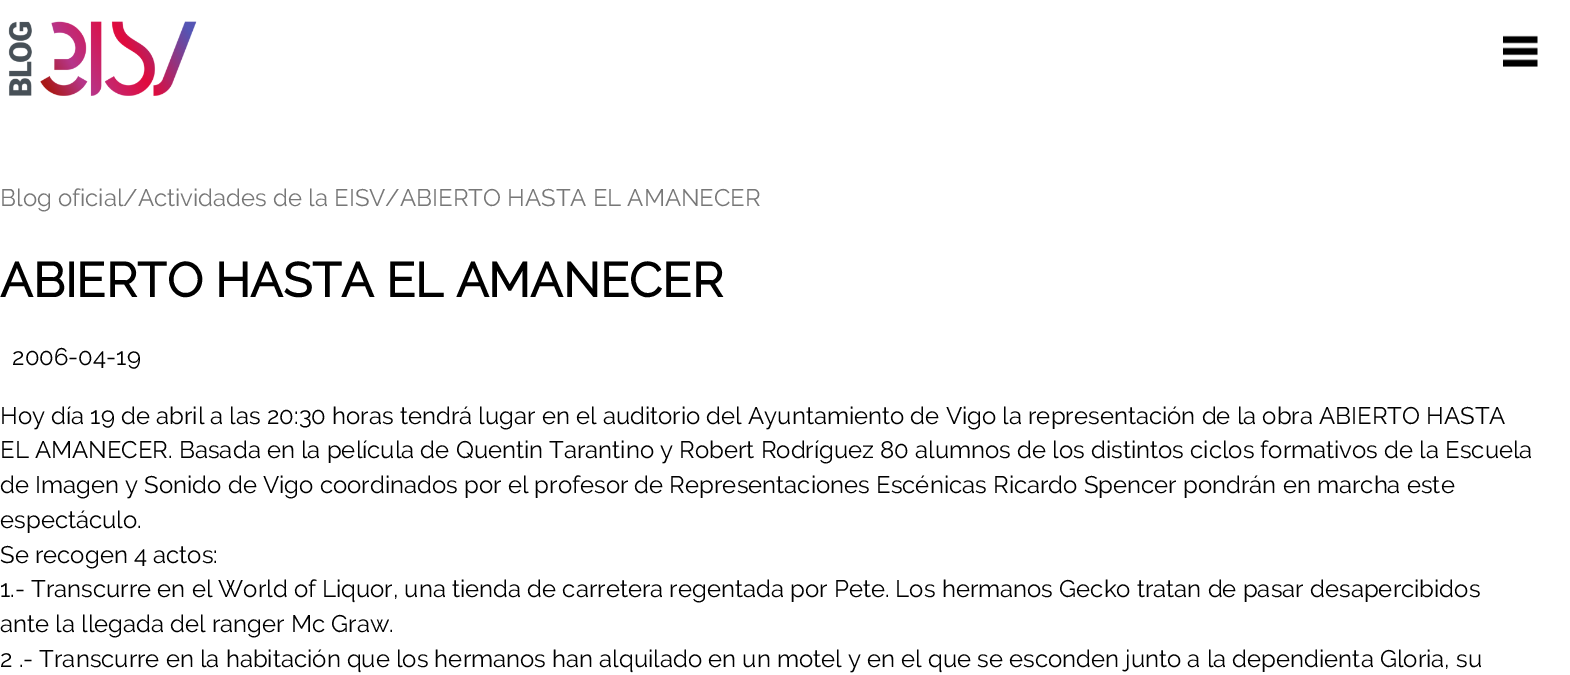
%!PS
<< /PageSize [1570 675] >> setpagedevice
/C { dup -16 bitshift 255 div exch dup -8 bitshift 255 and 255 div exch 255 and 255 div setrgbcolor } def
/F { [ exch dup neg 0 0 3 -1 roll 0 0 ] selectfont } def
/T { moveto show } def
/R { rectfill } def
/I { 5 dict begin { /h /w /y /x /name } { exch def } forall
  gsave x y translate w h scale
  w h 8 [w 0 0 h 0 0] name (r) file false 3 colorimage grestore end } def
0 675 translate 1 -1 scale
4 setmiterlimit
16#FFFFFF C
0 0 1570 675 R
(1.rgb) 8 21 189 75 I
(2.rgb) 1503 35 35 32 I
/Raleway-Regular 24 F
16#777777 C
(Blog oficial/Actividades de la EISV/ABIERTO HASTA EL AMANECER) 0 206 T
/Raleway-Bold 48.1 F
16#000000 C
(ABIERTO HASTA EL AMANECER) 0 297 T
/Raleway-Regular 24 F
(2006-04-19) 12 365 T
(Hoy día 19 de abril a las 20:30 horas tendrá lugar en el auditorio del Ayuntamiento de Vigo la representación de la obra ABIERTO HASTA) 0 424 T
(EL AMANECER. Basada en la película de Quentin Tarantino y Robert Rodríguez 80 alumnos de los distintos ciclos formativos de la Escuela) 0 458 T
(de Imagen y Sonido de Vigo coordinados por el profesor de Representaciones Escénicas Ricardo Spencer pondrán en marcha este) 0 493 T
(espectáculo.) 0 528 T
(Se recogen 4 actos:) 0 563 T
(1.- Transcurre en el World of Liquor, una tienda de carretera regentada por Pete. Los hermanos Gecko tratan de pasar desapercibidos) 0 597 T
(ante la llegada del ranger Mc Graw.) 0 632 T
(2 .- Transcurre en la habitación que los hermanos han alquilado en un motel y en el que se esconden junto a la dependienta Gloria, su) 0 667 T
showpage
